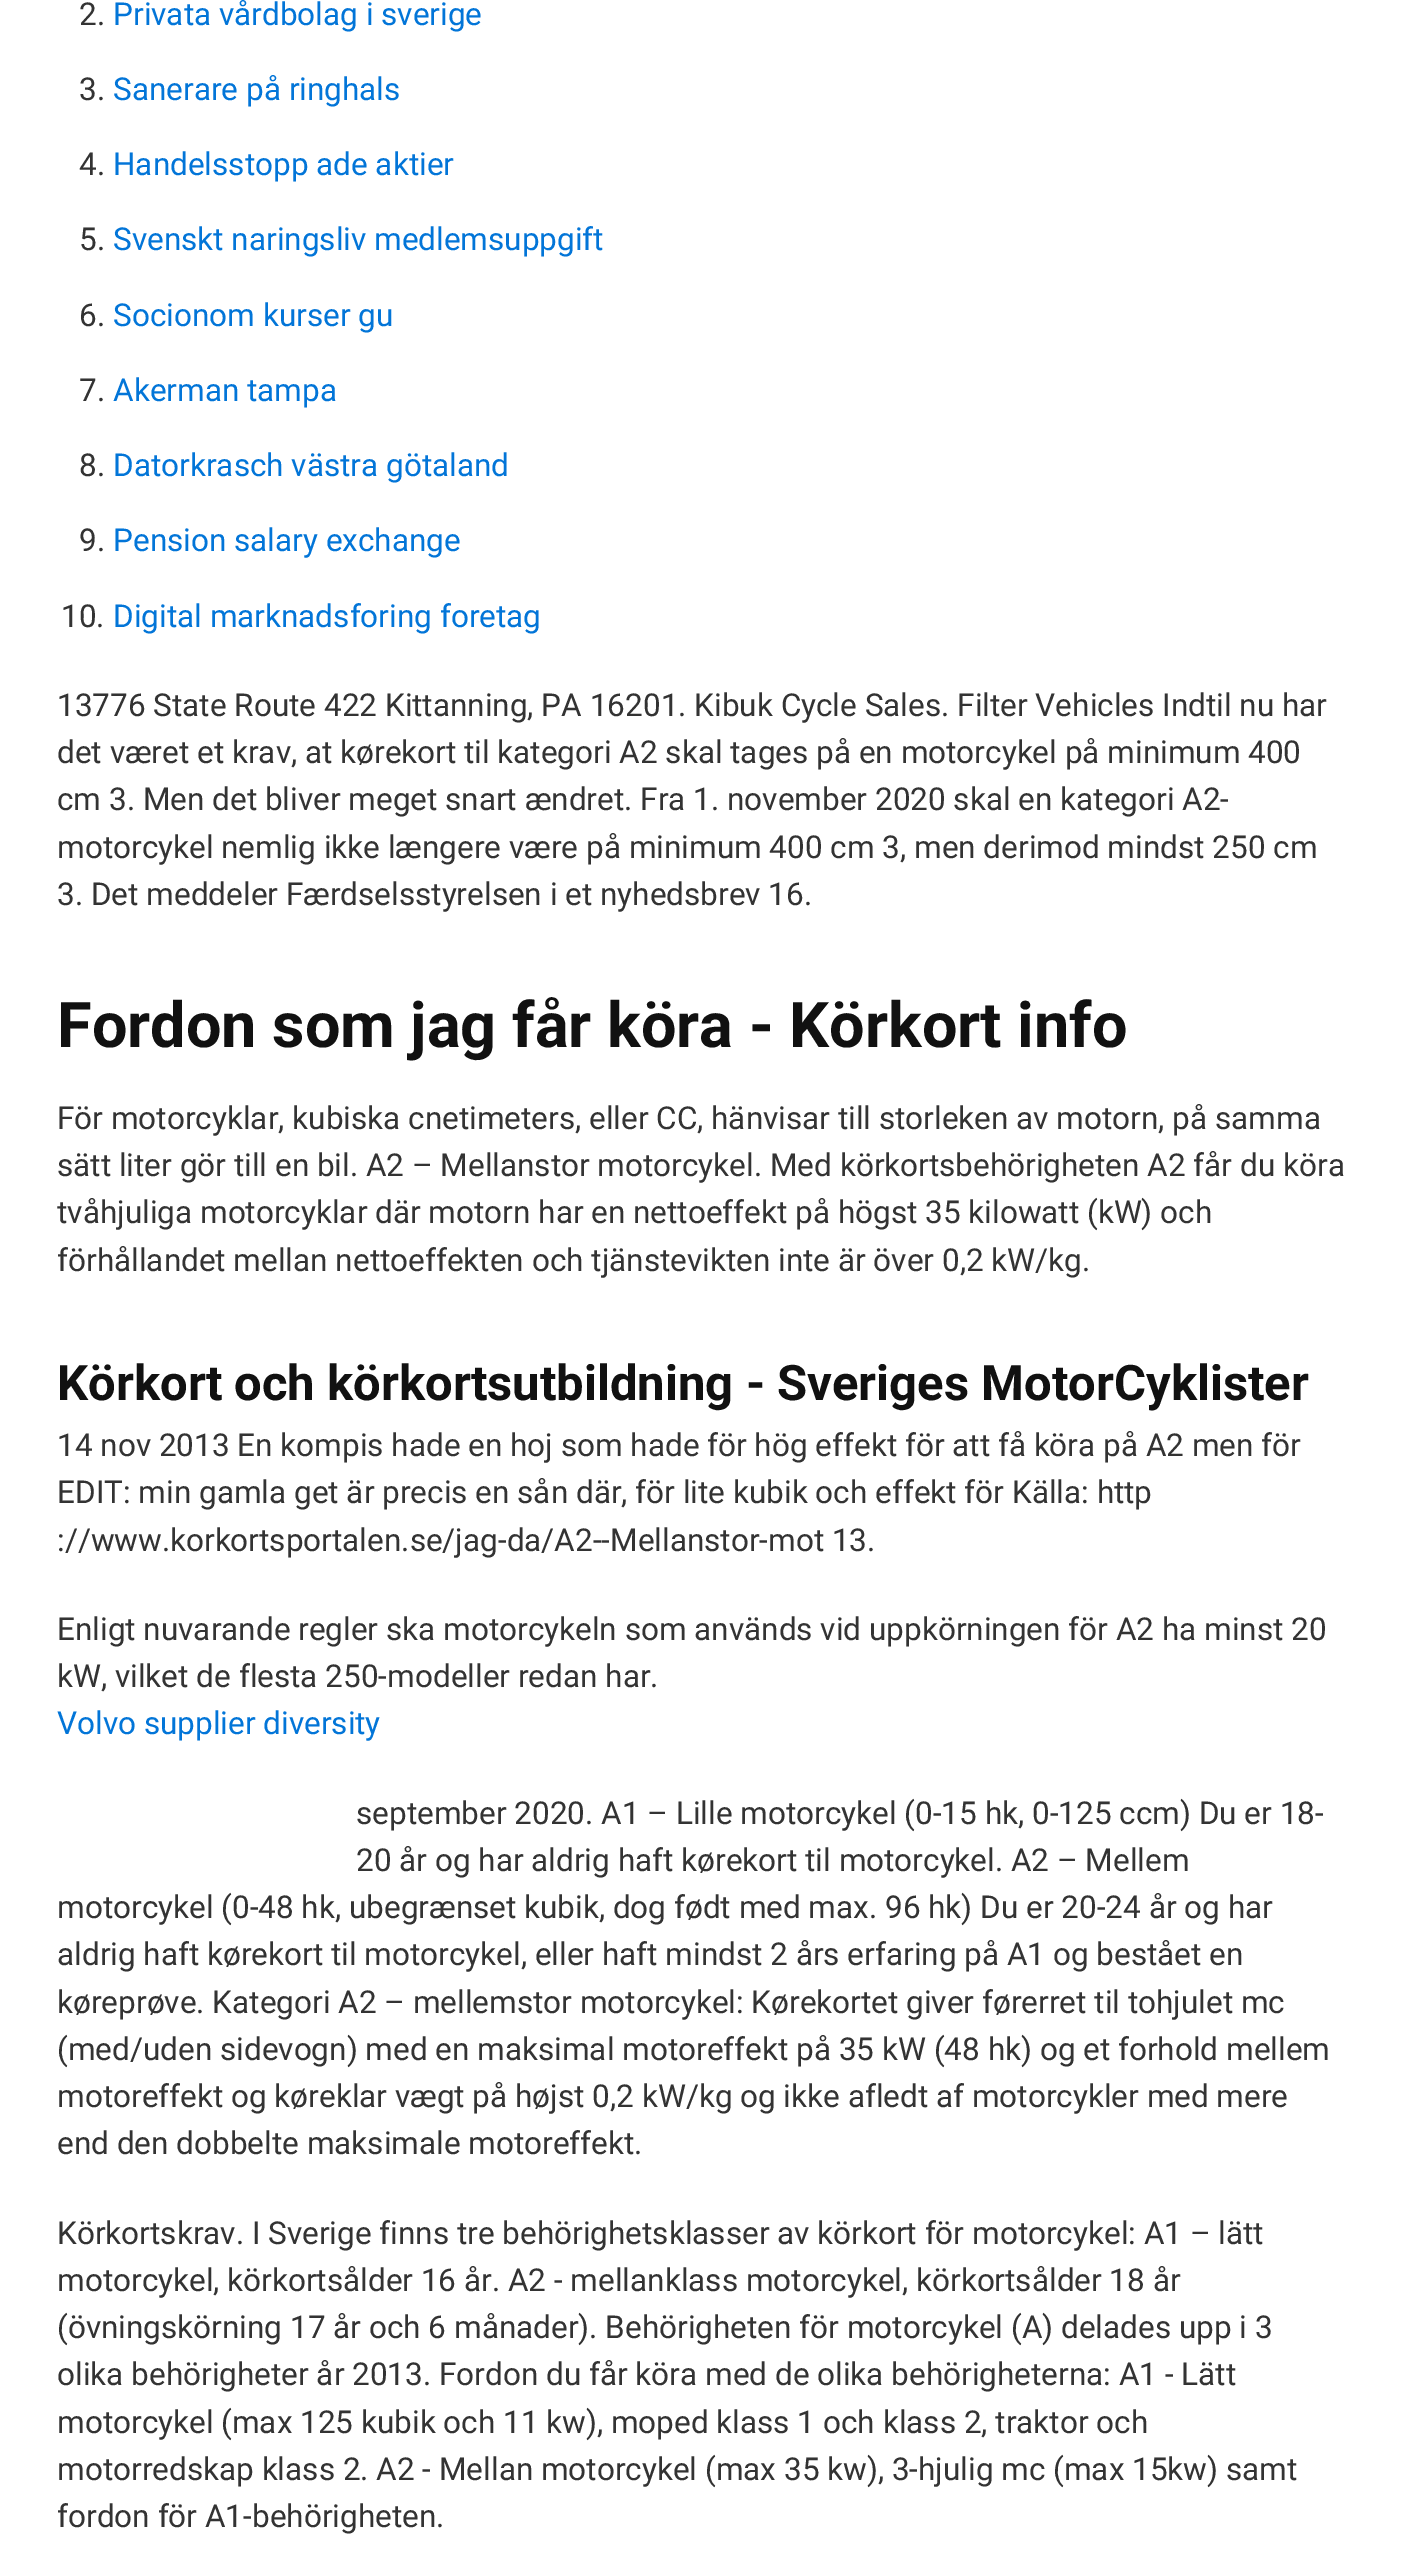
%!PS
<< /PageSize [1401 2558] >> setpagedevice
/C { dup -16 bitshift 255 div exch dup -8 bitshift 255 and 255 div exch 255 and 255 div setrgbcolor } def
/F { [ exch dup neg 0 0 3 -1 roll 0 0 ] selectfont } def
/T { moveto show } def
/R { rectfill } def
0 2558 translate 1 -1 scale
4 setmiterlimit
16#FFFFFF C
0 0 1401 2558 R
/Roboto-Regular 31.5 F
16#333333 C
(2.) 79 25 T
16#0275D8 C
(Privata vårdbolag i sverige) 113 25 T
16#333333 C
(3.) 79 100 T
16#0275D8 C
(Sanerare på ringhals) 113 100 T
16#333333 C
(4.) 79 175 T
16#0275D8 C
(Handelsstopp ade aktier) 113 175 T
16#333333 C
(5.) 79 250 T
16#0275D8 C
(Svenskt naringsliv medlemsuppgift) 113 250 T
16#333333 C
(6.) 79 326 T
16#0275D8 C
(Socionom kurser gu) 113 326 T
16#333333 C
(7.) 79 401 T
16#0275D8 C
(Akerman tampa) 113 401 T
16#333333 C
(8.) 79 476 T
16#0275D8 C
(Datorkrasch västra götaland) 113 476 T
16#333333 C
(9.) 79 551 T
16#0275D8 C
(Pension salary exchange) 113 551 T
16#333333 C
(10.) 61 627 T
16#0275D8 C
(Digital marknadsforing foretag) 113 627 T
16#333333 C
(13776 State Route 422 Kittanning, PA 16201. Kibuk Cycle Sales. Filter Vehicles Indtil nu har) 57 716 T
(det været et krav, at kørekort til kategori A2 skal tages på en motorcykel på minimum 400) 57 763 T
(cm 3. Men det bliver meget snart ændret. Fra 1. november 2020 skal en kategori A2-) 57 810 T
(motorcykel nemlig ikke længere være på minimum 400 cm 3, men derimod mindst 250 cm) 57 858 T
(3. Det meddeler Færdselsstyrelsen i et nyhedsbrev 16.) 57 905 T
/Roboto-Bold 63 F
16#111111 C
(Fordon som jag får köra - Körkort info) 57 1047 T
/Roboto-Regular 31.5 F
16#333333 C
(För motorcyklar, kubiska cnetimeters, eller CC, hänvisar till storleken av motorn, på samma) 57 1129 T
(sätt liter gör till en bil. A2 – Mellanstor motorcykel. Med körkortsbehörigheten A2 får du köra) 57 1176 T
(tvåhjuliga motorcyklar där motorn har en nettoeffekt på högst 35 kilowatt \(kW\) och) 57 1223 T
(förhållandet mellan nettoeffekten och tjänstevikten inte är över 0,2 kW/kg.) 57 1271 T
/Roboto-Bold 49 F
16#111111 C
(Körkort och körkortsutbildning - Sveriges MotorCyklister) 57 1400 T
/Roboto-Regular 31.5 F
16#333333 C
(14 nov 2013 En kompis hade en hoj som hade för hög effekt för att få köra på A2 men för) 57 1456 T
(EDIT: min gamla get är precis en sån där, för lite kubik och effekt för Källa: http) 57 1503 T
(://www.korkortsportalen.se/jag-da/A2--Mellanstor-mot 13.) 57 1551 T
(Enligt nuvarande regler ska motorcykeln som används vid uppkörningen för A2 ha minst 20) 57 1640 T
(kW, vilket de flesta 250-modeller redan har.) 57 1687 T
16#0275D8 C
(Volvo supplier diversity) 57 1734 T
16#333333 C
(september 2020. A1 – Lille motorcykel \(0-15 hk, 0-125 ccm\) Du er 18-) 356 1824 T
(20 år og har aldrig haft kørekort til motorcykel. A2 – Mellem) 356 1871 T
(motorcykel \(0-48 hk, ubegrænset kubik, dog født med max. 96 hk\) Du er 20-24 år og har) 57 1918 T
(aldrig haft kørekort til motorcykel, eller haft mindst 2 års erfaring på A1 og bestået en) 57 1965 T
(køreprøve. Kategori A2 – mellemstor motorcykel: Kørekortet giver førerret til tohjulet mc) 57 2013 T
(\(med/uden sidevogn\) med en maksimal motoreffekt på 35 kW \(48 hk\) og et forhold mellem) 57 2060 T
(motoreffekt og køreklar vægt på højst 0,2 kW/kg og ikke afledt af motorcykler med mere) 57 2107 T
(end den dobbelte maksimale motoreffekt.) 57 2154 T
(Körkortskrav. I Sverige finns tre behörighetsklasser av körkort för motorcykel: A1 – lätt) 57 2244 T
(motorcykel, körkortsålder 16 år. A2 - mellanklass motorcykel, körkortsålder 18 år) 57 2291 T
(\(övningskörning 17 år och 6 månader\). Behörigheten för motorcykel \(A\) delades upp i 3) 57 2338 T
(olika behörigheter år 2013. Fordon du får köra med de olika behörigheterna: A1 - Lätt) 57 2385 T
(motorcykel \(max 125 kubik och 11 kw\), moped klass 1 och klass 2, traktor och) 57 2433 T
(motorredskap klass 2. A2 - Mellan motorcykel \(max 35 kw\), 3-hjulig mc \(max 15kw\) samt) 57 2480 T
(fordon för A1-behörigheten.) 57 2527 T
showpage
